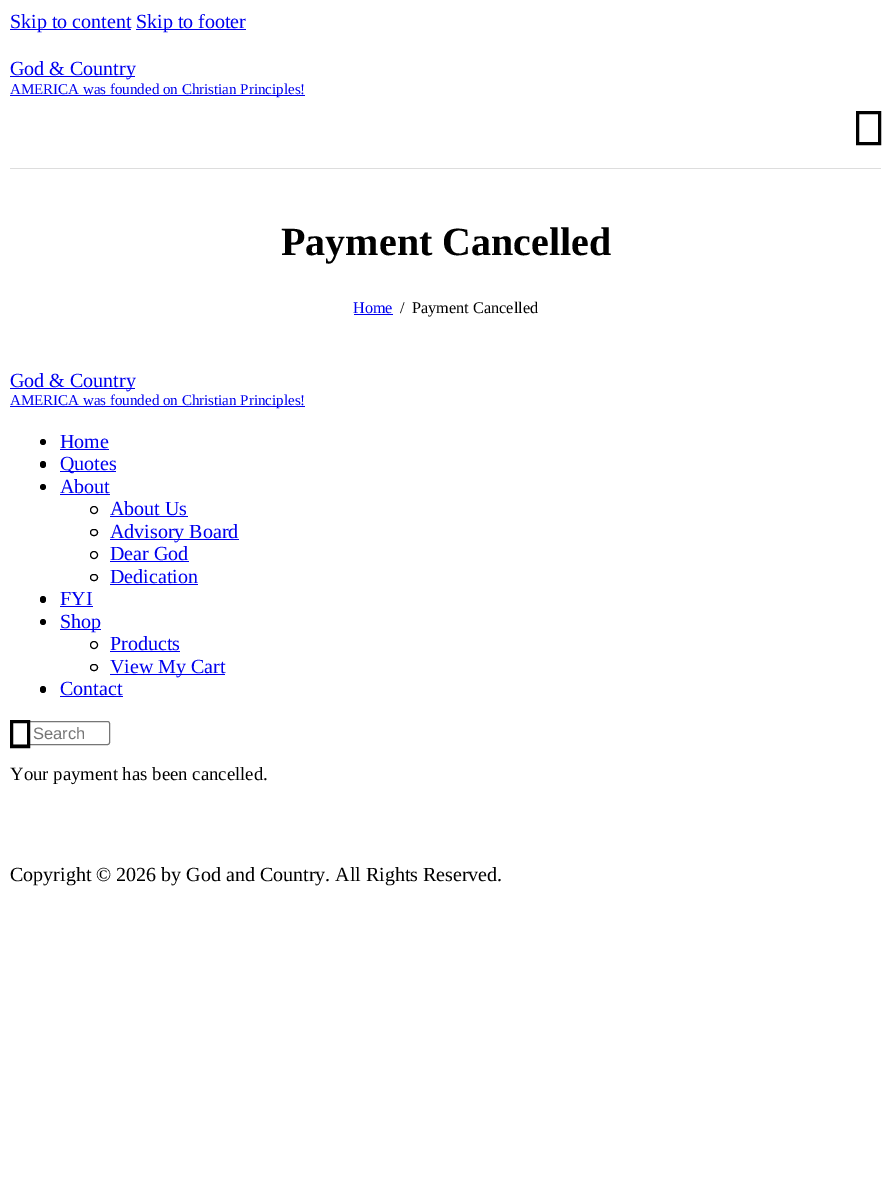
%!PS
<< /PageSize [891 1185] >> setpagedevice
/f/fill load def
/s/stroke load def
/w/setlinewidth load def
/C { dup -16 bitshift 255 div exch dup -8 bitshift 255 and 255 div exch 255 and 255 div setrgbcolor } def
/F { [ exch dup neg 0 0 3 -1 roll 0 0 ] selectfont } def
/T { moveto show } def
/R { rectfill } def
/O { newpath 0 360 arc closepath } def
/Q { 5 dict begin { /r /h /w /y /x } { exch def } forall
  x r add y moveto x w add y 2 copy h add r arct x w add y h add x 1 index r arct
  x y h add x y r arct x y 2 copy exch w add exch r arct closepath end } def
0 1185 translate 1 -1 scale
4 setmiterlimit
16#FFFFFF C
0 0 891 1185 R
16#0000EE C
10 29 121 1 R
/LiberationSerif-Regular 20 F
(Skip to content) 10 28 T
136 29 110 1 R
(Skip to footer) 136 28 T
16#DDDDDD C
10 168 871 1 R
16#0000EE C
10 76 125 1 R
(God & Country) 10 75 T
10 95 295 1 R
/LiberationSerif-Regular 15 F
(AMERICA was founded on Christian Principles!) 10 94 T
16#000000 C
3 w
857.5 112.5 22 31 rectstroke
/LiberationSerif-Bold 40 F
(Payment Cancelled) 281 255 T
/LiberationSerif-Regular 16.25 F
16#0000EE C
(Home) 353 313 T
354 314 39 1 R
16#000000 C
(/) 400 313 T
(Payment Cancelled) 412 313 T
16#0000EE C
10 388 125 1 R
/LiberationSerif-Regular 20 F
(God & Country) 10 387 T
10 406 295 1 R
/LiberationSerif-Regular 15 F
(AMERICA was founded on Christian Principles!) 10 405 T
16#000000 C
43 442 3 O f
/LiberationSerif-Regular 20 F
16#0000EE C
(Home) 60 448 T
60 449 49 1 R
16#000000 C
40 461 6 7 3 Q f
16#0000EE C
60 471 56 1 R
(Quotes) 60 470 T
16#000000 C
43 487 3 O f
16#0000EE C
(About) 60 493 T
60 494 50 1 R
16#000000 C
1 w
94 510 3.5 O s
16#0000EE C
(About Us) 110 515 T
110 516 78 1 R
16#000000 C
90.5 529.5 7 6 3 Q s
16#0000EE C
110 539 129 1 R
(Advisory Board) 110 538 T
16#000000 C
94 555 3.5 O s
16#0000EE C
(Dear God) 110 560 T
110 561 79 1 R
16#000000 C
90.5 574.5 7 6 3 Q s
16#0000EE C
(Dedication) 110 583 T
110 584 88 1 R
16#000000 C
40 596 6 7 3 Q f
16#0000EE C
(FYI) 60 605 T
60 606 33 1 R
16#000000 C
43 622 3 O f
16#0000EE C
60 629 41 1 R
(Shop) 60 628 T
16#000000 C
94 645 3.5 O s
16#0000EE C
(Products) 110 650 T
110 651 70 1 R
16#000000 C
90.5 664.5 7 6 3 Q s
16#0000EE C
110 674 115 1 R
(View My Cart) 110 673 T
16#000000 C
40 686 6 7 3 Q f
16#0000EE C
(Contact) 60 695 T
60 696 63 1 R
16#767676 C
10.5 721.5 99 23 2 Q s
16#000000 C
3 w
11.5 721.5 17 25 rectstroke
/LiberationSans-Regular 16.5 F
16#757575 C
(Search) 33 739 T
/LiberationSerif-Regular 18.75 F
16#000000 C
(Your payment has been cancelled.) 10 780 T
/LiberationSerif-Regular 20 F
(Copyright © 2026 by God and Country. All Rights Reserved.) 10 881 T
showpage
